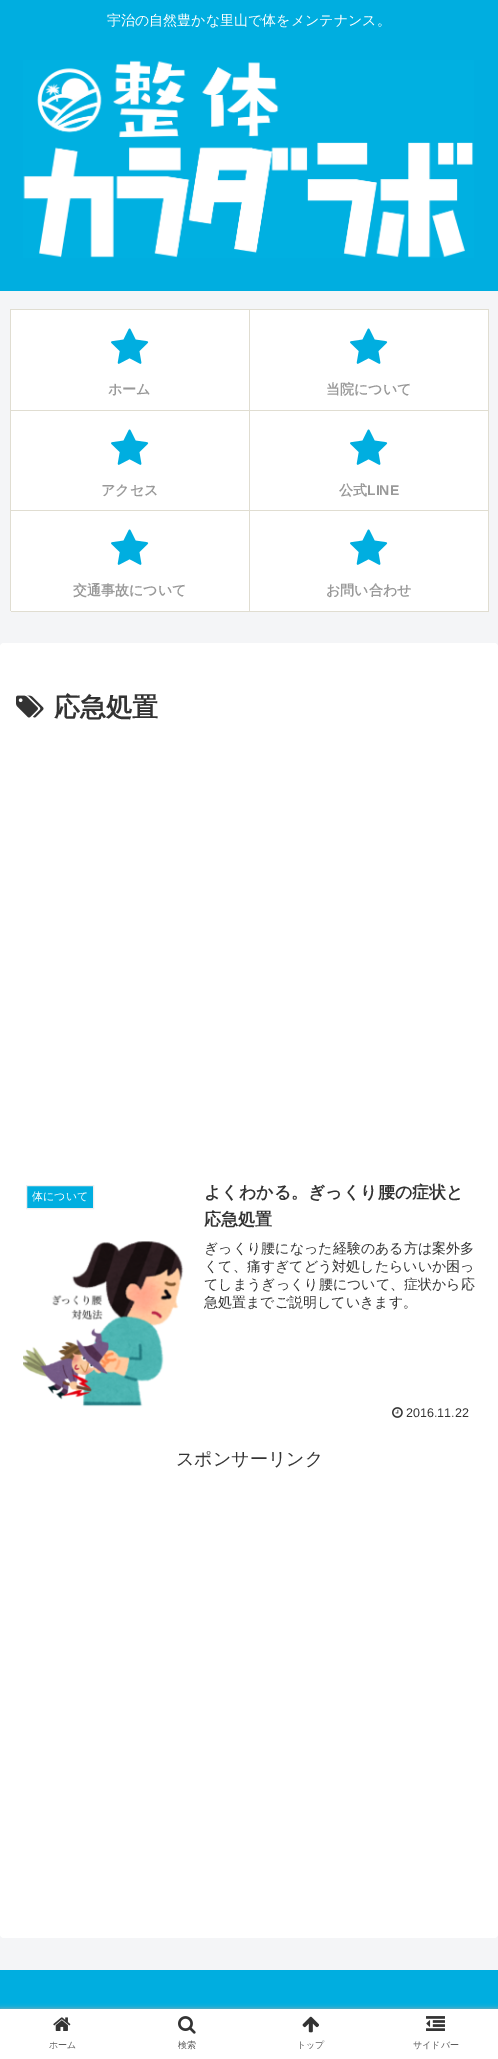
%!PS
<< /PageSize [498 2059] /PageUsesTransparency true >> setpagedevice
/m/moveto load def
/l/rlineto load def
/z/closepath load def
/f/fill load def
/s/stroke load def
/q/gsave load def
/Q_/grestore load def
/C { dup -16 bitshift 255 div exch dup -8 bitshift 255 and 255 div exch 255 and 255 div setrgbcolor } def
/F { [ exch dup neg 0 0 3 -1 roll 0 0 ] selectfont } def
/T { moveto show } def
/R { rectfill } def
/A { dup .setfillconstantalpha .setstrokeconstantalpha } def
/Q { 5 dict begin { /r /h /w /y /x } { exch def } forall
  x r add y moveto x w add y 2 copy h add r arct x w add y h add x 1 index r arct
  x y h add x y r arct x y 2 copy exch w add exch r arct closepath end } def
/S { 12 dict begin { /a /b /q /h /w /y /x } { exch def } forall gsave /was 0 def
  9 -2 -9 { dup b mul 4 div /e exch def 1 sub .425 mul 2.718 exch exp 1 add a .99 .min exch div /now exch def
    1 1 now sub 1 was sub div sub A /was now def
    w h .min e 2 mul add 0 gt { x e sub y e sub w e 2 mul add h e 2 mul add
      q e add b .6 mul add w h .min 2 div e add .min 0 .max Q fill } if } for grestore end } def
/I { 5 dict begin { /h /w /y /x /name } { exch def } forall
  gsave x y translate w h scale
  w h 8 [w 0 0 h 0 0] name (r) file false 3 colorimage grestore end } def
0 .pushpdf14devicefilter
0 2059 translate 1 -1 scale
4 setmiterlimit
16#F4F5F7 C
0 0 498 2059 R
16#00AEE0 C
0 0 498 291 R
/WenQuanYiZenHei-Medium 14 F
16#FFFFFF C
(宇治の自然豊かな里山で体をメンテナンス。) 107 25 T
(1.rgb) 23 60 451 198 I
11 310 238 100 R
q
10 309 239 101 rectclip
16#E0DDD1 C
-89 210 m 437 0 l 0 299 l -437 0 l z 11 310 m 239 0 l 0 101 l -239 0 l z eofill
Q_
(2.rgb) 111 328 38 36 I
/WenQuanYiZenHei-Bold 14 F
16#999999 C
(ホーム) 108 394 T
16#E0DDD1 C
488 309 1 1 R
250 410 m 0 1 l 239 0 l 0 -101 l -1 0 l 0 100 l z f
16#FFFFFF C
250 310 238 100 R
q
249 309 239 101 rectclip
16#E0DDD1 C
150 210 m 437 0 l 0 299 l -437 0 l z 250 310 m 239 0 l 0 101 l -239 0 l z eofill
Q_
(2.rgb) 350 328 38 36 I
16#999999 C
(当院について) 326 394 T
16#FFFFFF C
11 411 238 99 R
q
10 410 239 100 rectclip
16#E0DDD1 C
-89 311 m 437 0 l 0 298 l -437 0 l z 11 411 m 239 0 l 0 100 l -239 0 l z eofill
Q_
(2.rgb) 111 429 38 36 I
16#999999 C
(アクセス) 101 495 T
16#E0DDD1 C
250 510 m 0 1 l 239 0 l 0 -100 l -1 0 l 0 99 l z f
16#FFFFFF C
250 411 238 99 R
q
249 410 239 100 rectclip
16#E0DDD1 C
150 311 m 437 0 l 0 298 l -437 0 l z 250 411 m 239 0 l 0 100 l -239 0 l z eofill
Q_
(2.rgb) 350 429 38 36 I
16#999999 C
(公式) 339 495 T
/LiberationSans-Bold 14 F
(LINE) 367 495 T
16#E0DDD1 C
11 611 m 0 1 l 239 0 l 0 -101 l -1 0 l 0 100 l z f
16#FFFFFF C
11 511 238 100 R
q
10 510 239 101 rectclip
16#E0DDD1 C
-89 411 m 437 0 l 0 299 l -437 0 l z 11 511 m 239 0 l 0 101 l -239 0 l z eofill
Q_
(2.rgb) 111 529 38 36 I
/WenQuanYiZenHei-Bold 14 F
16#999999 C
(交通事故について) 73 595 T
16#E0DDD1 C
250 611 m 0 1 l 239 0 l 0 -101 l -1 0 l 0 100 l z f
16#FFFFFF C
250 511 238 100 R
q
249 510 239 101 rectclip
16#E0DDD1 C
150 411 m 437 0 l 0 299 l -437 0 l z 250 511 m 239 0 l 0 101 l -239 0 l z eofill
Q_
(2.rgb) 350 529 38 36 I
16#999999 C
(お問い合わせ) 326 595 T
16#FFFFFF C
0 643 498 1295 4 Q f
(3.rgb) 16 695 28 23 I
/WenQuanYiZenHei-Bold 26 F
16#333333 C
(応急処置) 54 716 T
16#00AEE0 C
26.5 1185.5 m 67 0 l 0 23 l -67 0 l z q f Q_
16#EEEEEE C
s
/WenQuanYiZenHei-Medium 11 F
16#FFFFFF C
(体について) 32 1200 T
(4.rgb) 23 1241 161 166 I
/WenQuanYiZenHei-Bold 17 F
16#333333 C
(よくわかる。ぎっくり腰の症状と) 204 1198 T
(応急処置) 204 1225 T
/WenQuanYiZenHei-Medium 14 F
(ぎっくり腰になった経験のある方は案外多) 204 1253 T
(くて、痛すぎてどう対処したらいいか困っ) 204 1271 T
(てしまうぎっくり腰について、症状から応) 204 1289 T
(急処置までご説明していきます。) 204 1307 T
(5.rgb) 392 1407 11 11 I
/LiberationSans-Regular 12.5 F
(2016.11.22) 406 1417 T
/WenQuanYiZenHei-Medium 18 F
(スポンサーリンク) 176 1465 T
16#00AEE0 C
0 1970 498 39 R
16#A9A9A9 C
0 2009 498 50 0 2.5 1 S
16#FFFFFF C
0 2009 498 50 R
(6.rgb) 53 2017 18 14 I
/WenQuanYiZenHei-Medium 9 F
16#5C5C5C C
(ホーム) 49 2048 T
(7.rgb) 178 2016 18 18 I
(検索) 178 2048 T
(8.rgb) 302 2016 17 17 I
(トップ) 297 2048 T
(9.rgb) 426 2016 19 15 I
(サイドバー) 413 2048 T
.poppdf14devicefilter showpage
